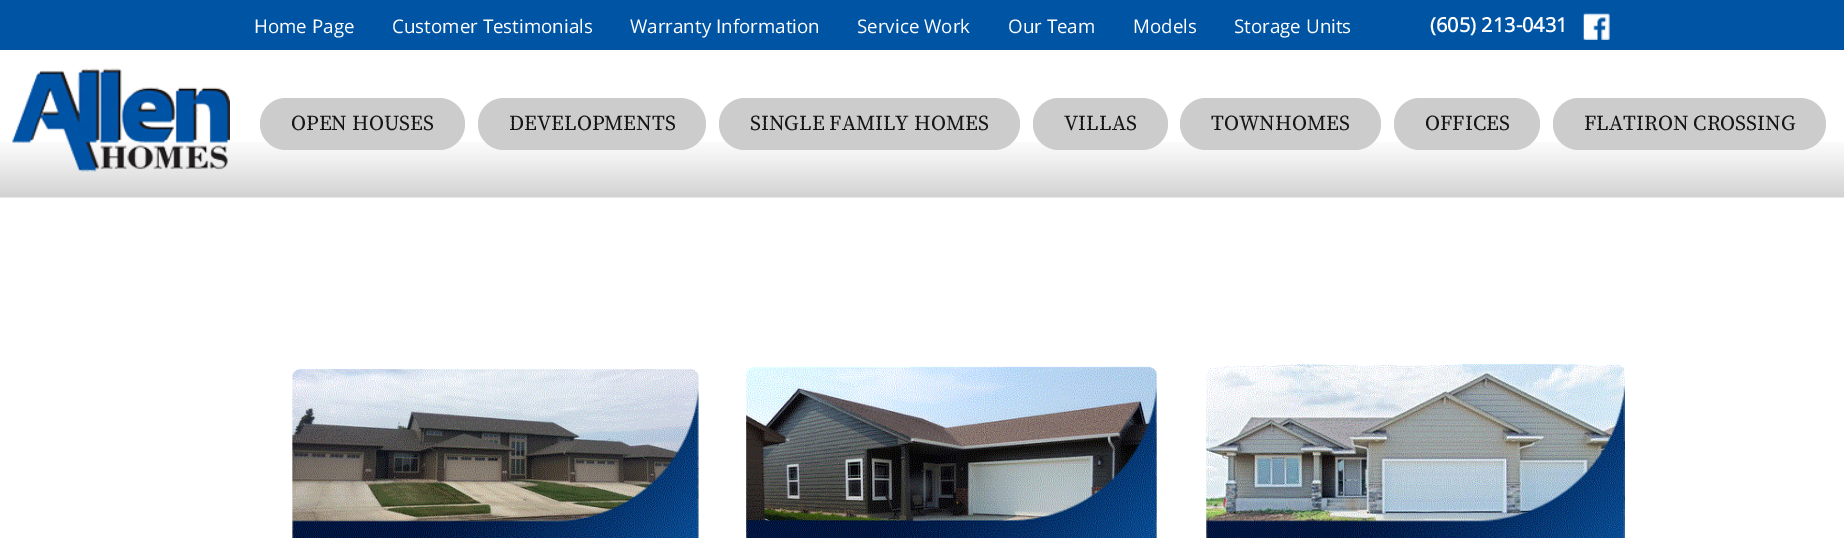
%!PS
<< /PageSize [1844 538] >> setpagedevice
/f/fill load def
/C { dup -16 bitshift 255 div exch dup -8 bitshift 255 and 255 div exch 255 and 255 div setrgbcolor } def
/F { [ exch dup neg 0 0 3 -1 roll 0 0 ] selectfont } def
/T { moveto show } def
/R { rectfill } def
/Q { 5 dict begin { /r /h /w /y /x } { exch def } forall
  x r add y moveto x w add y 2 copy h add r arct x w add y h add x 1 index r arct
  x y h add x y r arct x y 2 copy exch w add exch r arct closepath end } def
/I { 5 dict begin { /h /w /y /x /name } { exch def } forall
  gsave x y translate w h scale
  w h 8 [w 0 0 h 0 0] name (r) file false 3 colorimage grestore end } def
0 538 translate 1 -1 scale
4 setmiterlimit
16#FFFFFF C
0 0 1844 538 R
16#0054A4 C
0 0 1844 50 R
/OpenSans-Regular 18.75 F
16#FFFFFF C
(Home Page) 254 33 T
(Customer Testimonials) 392 33 T
(Warranty Information) 630 33 T
(Service Work) 857 33 T
(Our Team) 1008 33 T
(Models) 1133 33 T
(Storage Units) 1234 33 T
/OpenSans-Bold 20 F
(\(605\) 213-0431) 1430 32 T
(1.rgb) 1583 13 27 27 I
(2.rgb) 0 142 1844 56 I
(3.rgb) 12 68 218 104 I
16#CCCCCC C
260 98 205 52 26 Q f
/SourceSerifPro-Regular 21.25 F
16#151515 C
(OPEN HOUSES) 291 130 T
16#CCCCCC C
478 98 228 52 26 Q f
16#151515 C
(DEVELOPMENTS) 509 130 T
16#CCCCCC C
719 98 301 52 26 Q f
16#151515 C
(SINGLE FAMILY HOMES) 750 130 T
16#CCCCCC C
1033 98 135 52 26 Q f
16#151515 C
(VILLAS) 1064 130 T
16#CCCCCC C
1180 98 201 52 26 Q f
16#151515 C
(TOWNHOMES) 1211 130 T
16#CCCCCC C
1394 98 146 52 26 Q f
16#151515 C
(OFFICES) 1425 130 T
16#CCCCCC C
1553 98 273 52 26 Q f
16#151515 C
(FLATIRON CROSSING) 1584 130 T
(4.rgb) 292 369 407 169 I
(5.rgb) 746 366 411 172 I
(6.rgb) 1206 364 419 174 I
showpage
